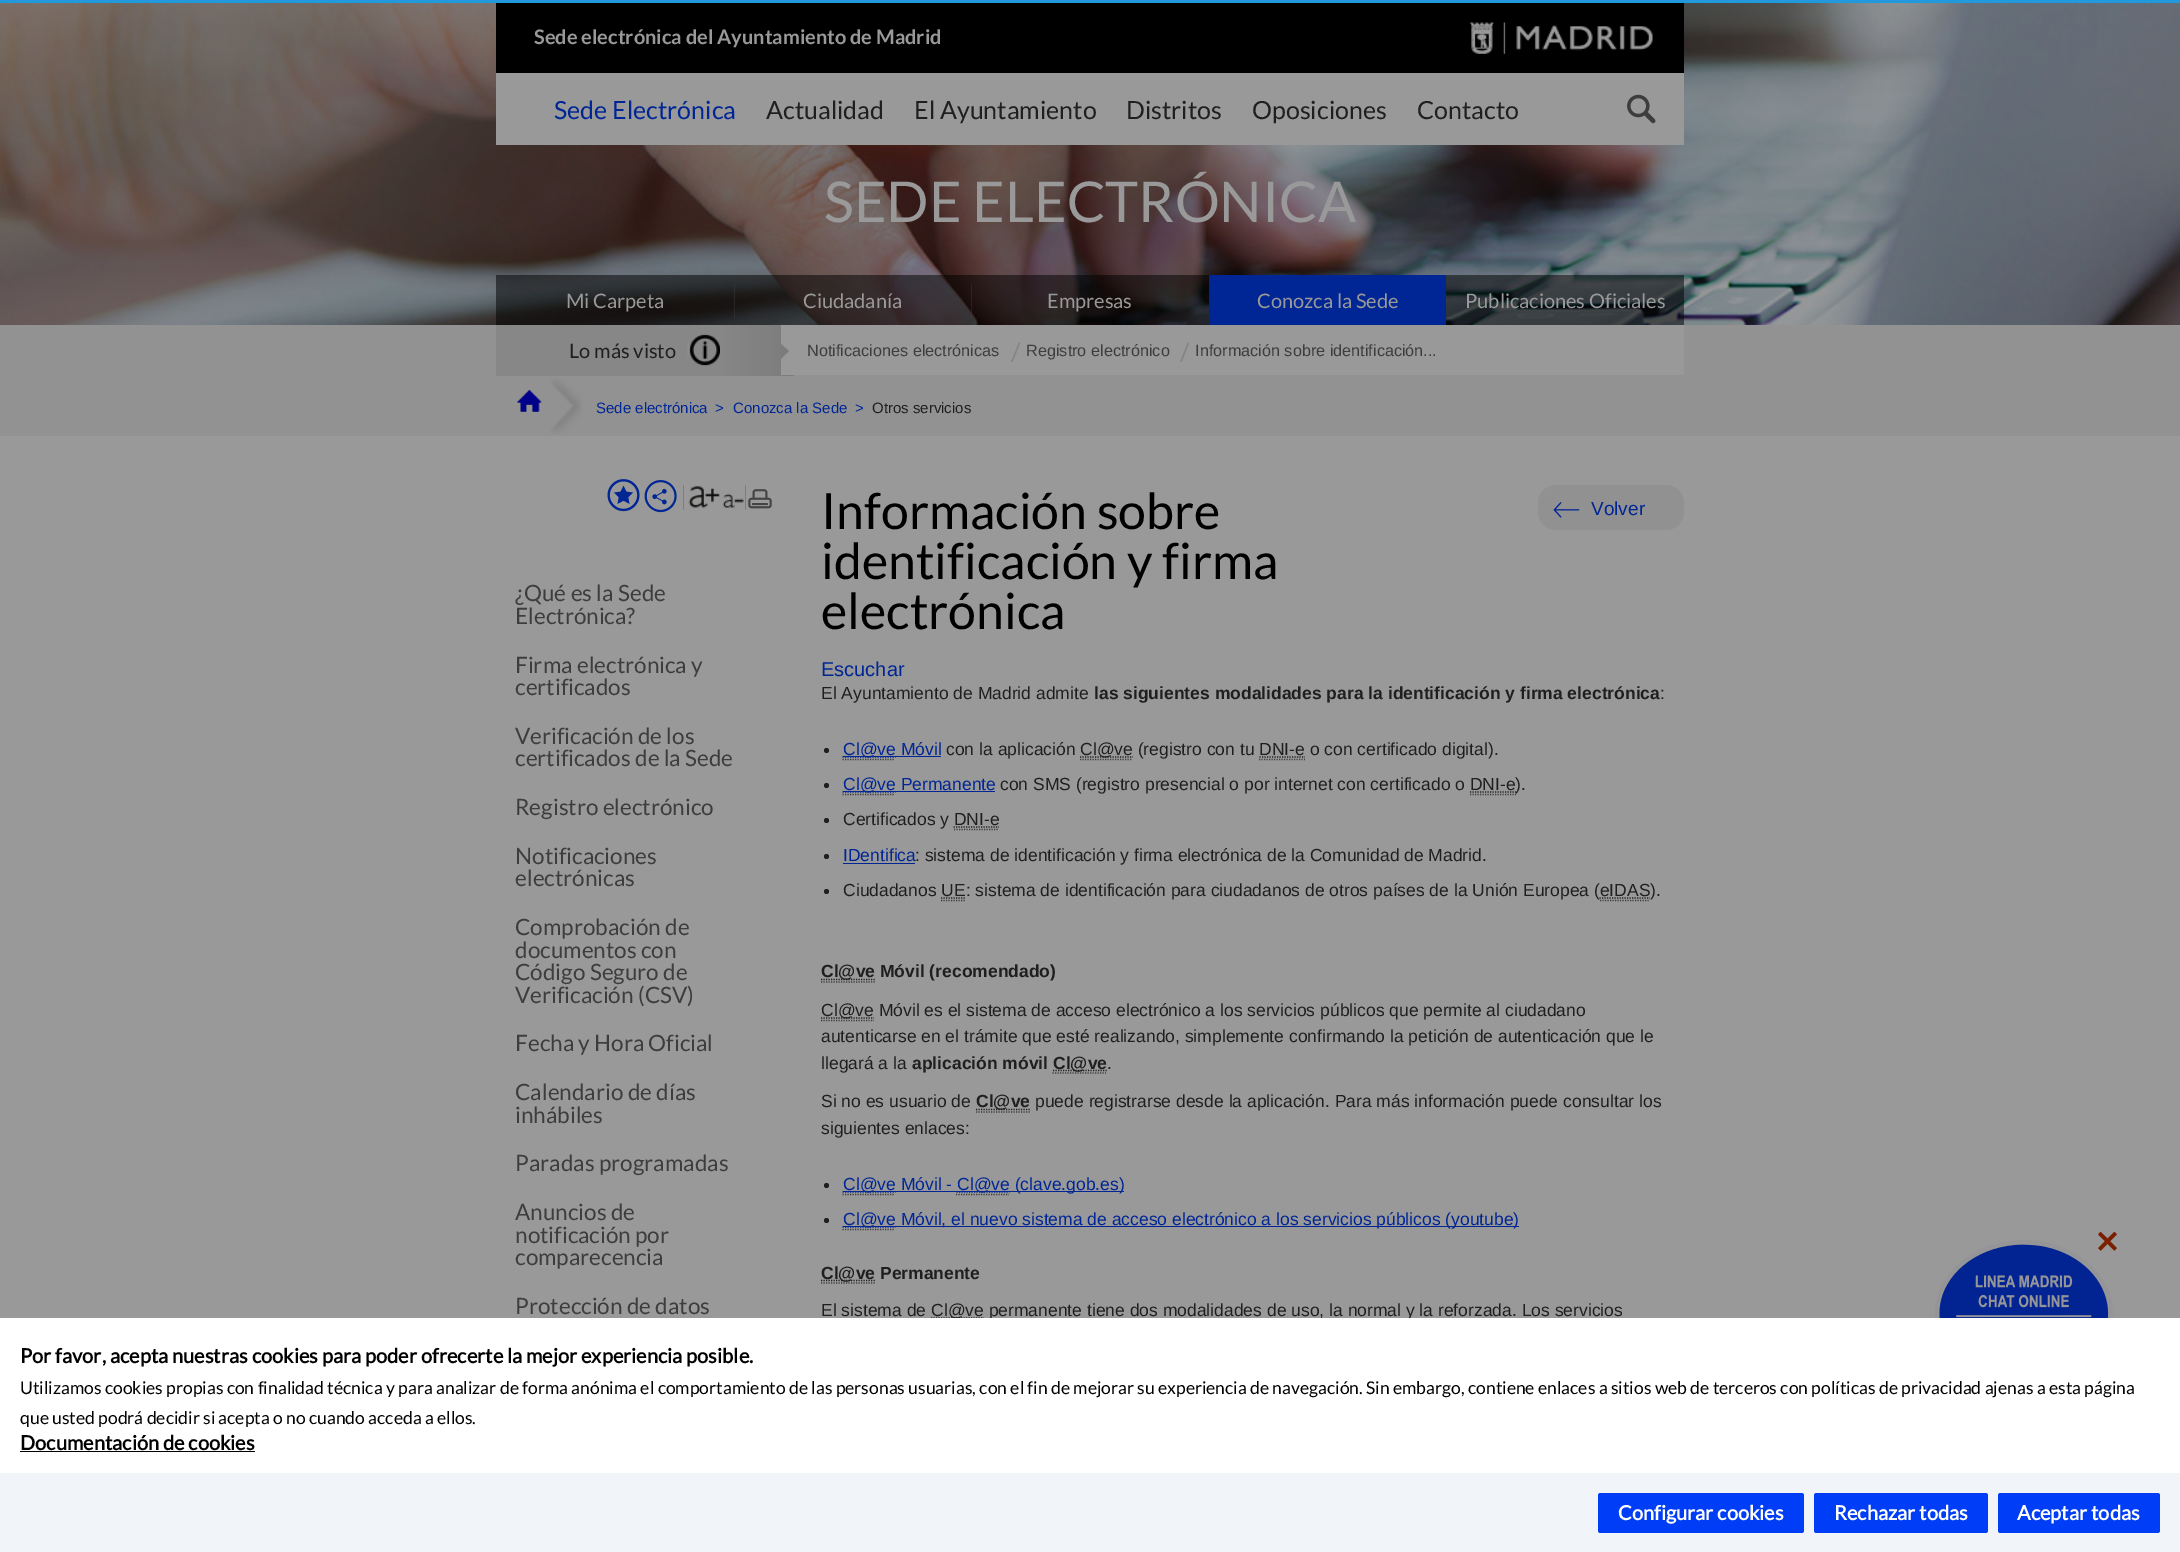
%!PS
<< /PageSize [2180 1552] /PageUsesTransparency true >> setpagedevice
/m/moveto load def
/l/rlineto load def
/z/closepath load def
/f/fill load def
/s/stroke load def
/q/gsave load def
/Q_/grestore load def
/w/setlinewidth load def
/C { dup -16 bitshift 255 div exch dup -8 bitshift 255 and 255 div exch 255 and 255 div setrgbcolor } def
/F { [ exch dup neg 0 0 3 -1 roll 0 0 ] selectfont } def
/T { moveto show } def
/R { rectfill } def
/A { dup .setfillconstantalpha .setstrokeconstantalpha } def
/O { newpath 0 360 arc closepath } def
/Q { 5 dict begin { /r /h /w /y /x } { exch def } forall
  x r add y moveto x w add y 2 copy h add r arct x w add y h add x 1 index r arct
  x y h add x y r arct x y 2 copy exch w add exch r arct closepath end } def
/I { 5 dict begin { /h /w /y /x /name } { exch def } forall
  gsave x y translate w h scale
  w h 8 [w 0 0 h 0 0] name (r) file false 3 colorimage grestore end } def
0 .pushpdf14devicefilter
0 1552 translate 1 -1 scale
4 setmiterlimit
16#999999 C
0 0 2180 1552 R
16#2299DD C
0 0 2180 3 R
(1.rgb) 0 3 2180 322 I
16#000000 C
496 3 1188 70 R
/Lato-Bold 20 F
16#999999 C
(Sede electrónica del Ayuntamiento de Madrid) 534 44 T
(2.rgb) 1470 22 183 32 I
496 73 1188 72 R
/Lato-Regular 25 F
16#002594 C
(Sede Electrónica) 554 119 T
16#1F1F1F C
(Actualidad) 766 119 T
(El Ayuntamiento) 914 119 T
(Distritos) 1126 119 T
(Oposiciones) 1252 119 T
(Contacto) 1417 119 T
(3.rgb) 1627 94 29 30 I
/Lato-Regular 56.25 F
16#999999 C
(SEDE ELECTRÓNICA) 824 222 T
0.51 A
16#000000 C
496 275 238 50 R
/Lato-Regular 20 F
1 A
16#999999 C
(Mi Carpeta) 566 308 T
0.3 A
734 284 1 34 R
0.51 A
16#000000 C
734 275 237 50 R
1 A
16#999999 C
(Ciudadanía) 803 308 T
0.3 A
971 284 1 34 R
0.51 A
16#000000 C
971 275 238 50 R
1 A
16#999999 C
(Empresas) 1047 308 T
16#002594 C
1209 275 237 50 R
16#999999 C
(Conozca la Sede) 1257 308 T
0.51 A
16#000000 C
1446 275 238 50 R
1 A
16#999999 C
(Publicaciones Oficiales) 1465 308 T
16#929292 C
0 325 2180 111 R
q 496 325 m 298 0 l 0 51 l -298 0 l z clip newpath
<< /ShadingType 2 /ColorSpace /DeviceRGB /Coords [496 351 794 351] /Extend [true true] /Function << /FunctionType 3 /Domain [0 1] /Functions [<< /FunctionType 2 /Domain [0 1] /C0 [.533 .529 .529] /C1 [.533 .529 .529] /N 1 >> << /FunctionType 2 /Domain [0 1] /C0 [.533 .529 .529] /C1 [.49 .486 .486] /N 1 >>] /Bounds [.75] /Encode [0 1 0 1] >> >> shfill Q_
16#1F1F1F C
(Lo más visto) 569 358 T
(4.rgb) 687 334 33 32 I
16#999999 C
781 325 903 50 R
16#7D7C7C C
781 359 m 0 -15 l 8 7 l z f
/LiberationSans-Regular 16.25 F
16#3D3D3D C
(Notificaciones electrónicas) 807 356 T
/Lato-Regular 25 F
16#858383 C
(/) 1011 361 T
/LiberationSans-Regular 16.25 F
16#3D3D3D C
(Registro electrónico) 1026 356 T
/Lato-Regular 25 F
16#858383 C
(/) 1180 361 T
/LiberationSans-Regular 16.25 F
16#3D3D3D C
(Información sobre identificación...) 1195 356 T
(5.rgb) 517 390 25 22 I
(6.rgb) 550 378 33 56 I
/LiberationSans-Regular 15 F
16#002594 C
(Sede electrónica) 596 413 T
(>) 715 413 T
(Conozca la Sede) 733 413 T
(>) 855 413 T
16#1F1F1F C
(Otros servicios) 872 413 T
(7.rgb) 607 479 33 33 I
(8.rgb) 644 480 33 33 I
16#7E7D7D C
683 485 1 25 R
(9.rgb) 688 486 32 22 I
(10.rgb) 723 493 21 15 I
745 485 1 25 R
(11.rgb) 748 489 24 20 I
/Lato-Regular 22.5 F
16#3D3D3D C
(¿Qué es la Sede) 515 601 T
(Electrónica?) 515 624 T
(Firma electrónica y) 515 673 T
(certificados) 515 695 T
(Verificación de los) 515 744 T
(certificados de la Sede) 515 766 T
(Registro electrónico) 515 815 T
(Notificaciones) 515 864 T
(electrónicas) 515 886 T
(Comprobación de) 515 935 T
(documentos con) 515 958 T
(Código Seguro de) 515 980 T
(Verificación \(CSV\)) 515 1003 T
(Fecha y Hora Oficial) 515 1051 T
(Calendario de días) 515 1100 T
(inhábiles) 515 1123 T
(Paradas programadas) 515 1171 T
(Anuncios de) 515 1220 T
(notificación por) 515 1243 T
(comparecencia) 515 1265 T
(Protección de datos) 515 1314 T
/Lato-Regular 50 F
16#000000 C
(Información sobre) 821 529 T
(identificación y firma) 821 579 T
(electrónica) 821 629 T
16#919191 C
1538 485 146 45 18 Q f
(12.rgb) 1553 502 27 16 I
/LiberationSans-Regular 19 F
16#002594 C
(Volver) 1591 515 T
/LiberationSans-Regular 20 F
(Escuchar) 821 676 T
/LiberationSans-Regular 17.5 F
16#1F1F1F C
(El Ayuntamiento de Madrid admite) 821 699 T
/LiberationSans-Bold 17.5 F
(las siguientes modalidades para la identificación y firma electrónica) 1094 699 T
/LiberationSans-Regular 17.5 F
(:) 1660 699 T
826.5 750.5 2.5 O f
16#002594 C
1.2 w
[1.25 1.25] 0 setdash
842.5 757 m 53 0 l s
843 756 98 1 R
(Cl@ve Móvil) 843 755 T
16#3D3D3D C
842.5 759.5 m 52.5 0 l s
16#1F1F1F C
(con la aplicación) 946 755 T
16#3D3D3D C
1080 759.5 m 52.5 0 l s
16#1F1F1F C
1080 757 m 53 0 l s
(Cl@ve \(registro con tu DNI-e o con certificado digital\).) 1080 755 T
1259.5 757 m 45.5 0 l s
16#3D3D3D C
1259 759.5 m 46 0 l s
16#1F1F1F C
826.5 785.5 2.5 O f
16#002594 C
842.5 792 m 53 0 l s
843 791 152 1 R
(Cl@ve Permanente) 843 790 T
16#3D3D3D C
842.5 794.5 m 52.5 0 l s
16#1F1F1F C
(con SMS \(registro presencial o por internet con certificado o DNI-e\).) 1000 790 T
1470 792 m 46 0 l s
16#3D3D3D C
1470 794.5 m 46 0 l s
16#1F1F1F C
826.5 820.5 2.5 O f
(Certificados y DNI-e) 843 825 T
953.5 827 m 45.5 0 l s
16#3D3D3D C
954 829.5 m 45 0 l s
16#1F1F1F C
826.5 856.5 2.5 O f
16#002594 C
(IDentifica) 843 861 T
843 863 72 1 R
16#1F1F1F C
(: sistema de identificación y firma electrónica de la Comunidad de Madrid.) 915 861 T
826.5 891.5 2.5 O f
(Ciudadanos UE: sistema de identificación para ciudadanos de otros países de la Unión Europea \(eIDAS\).) 843 896 T
941 898 m 24 0 l s
1599.5 898 m 50.5 0 l s
16#3D3D3D C
941 900.5 m 24 0 l s
1600 900.5 m 50 0 l s
16#1F1F1F C
821 979.5 m 54.5 0 l s
/LiberationSans-Bold 17.5 F
(Cl@ve Móvil \(recomendado\)) 821 977 T
16#3D3D3D C
821 982 m 54 0 l s
821 1020.5 m 53 0 l s
16#1F1F1F C
821 1018 m 53 0 l s
/LiberationSans-Regular 17.5 F
(Cl@ve Móvil es el sistema de acceso electrónico a los servicios públicos que permite al ciudadano) 821 1016 T
(autenticarse en el trámite que esté realizando, simplemente confirmando la petición de autenticación que le) 821 1042 T
(llegará a la) 821 1069 T
/LiberationSans-Bold 17.5 F
(aplicación móvil) 912 1069 T
1053 1070.5 m 54 0 l s
(Cl@ve) 1053 1069 T
16#3D3D3D C
1052.5 1073 m 53.5 0 l s
/LiberationSans-Regular 17.5 F
16#1F1F1F C
(.) 1107 1069 T
(Si no es usuario de) 821 1107 T
976 1109.5 m 54 0 l s
/LiberationSans-Bold 17.5 F
(Cl@ve) 976 1107 T
16#3D3D3D C
976 1112 m 54 0 l s
/LiberationSans-Regular 17.5 F
16#1F1F1F C
(puede registrarse desde la aplicación. Para más información puede consultar los) 1035 1107 T
(siguientes enlaces:) 821 1134 T
826.5 1185.5 2.5 O f
16#002594 C
842.5 1192 m 53 0 l s
843 1191 113 1 R
(Cl@ve Móvil -) 843 1190 T
16#3D3D3D C
842.5 1194.5 m 52.5 0 l s
956 1194.5 m 53 0 l s
16#002594 C
956.5 1192 m 53 0 l s
956 1191 168 1 R
(Cl@ve \(clave.gob.es\)) 957 1190 T
16#1F1F1F C
826.5 1220.5 2.5 O f
16#3D3D3D C
842.5 1229.5 m 52.5 0 l s
16#002594 C
842.5 1227 m 53 0 l s
843 1226 676 1 R
(Cl@ve Móvil, el nuevo sistema de acceso electrónico a los servicios públicos \(youtube\)) 843 1225 T
16#1F1F1F C
821 1280.5 m 54.5 0 l s
/LiberationSans-Bold 17.5 F
(Cl@ve Permanente) 821 1279 T
16#3D3D3D C
821 1283 m 54 0 l s
/LiberationSans-Regular 17.5 F
16#1F1F1F C
(El sistema de) 821 1316 T
931 1318 m 53 0 l s
(Cl@ve permanente tiene dos modalidades de uso, la normal y la reforzada. Los servicios) 931 1316 T
(14.rgb) 1935 1240 178 78 I
(13.rgb) 2098 1231 19 20 I
16#FFFFFF C
0 1318 2180 155 R
/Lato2-Bold 20 F
16#000000 C
(Por favor, acepta nuestras cookies para poder ofrecerte la mejor experiencia posible.) 20 1363 T
/Lato-Regular 17.5 F
(Utilizamos cookies propias con finalidad técnica y para analizar de forma anónima el comportamiento de las personas usuarias, con el fin de mejorar su experiencia de navegación. Sin embargo, contiene enlaces a sitios web de terceros con políticas de privacidad ajenas a esta página) 20 1394 T
(que usted podrá decidir si acepta o no cuando acceda a ellos.) 20 1424 T
/Lato2-Bold 20 F
(Documentación de cookies) 20 1450 T
20 1451 235 1 R
16#F1F5F9 C
0 1473 2180 79 R
16#003DF6 C
1598 1493 206 40 2.5 Q f
16#FFFFFF C
(Configurar cookies) 1618 1520 T
16#003DF6 C
1814 1493 174 40 2.5 Q f
16#FFFFFF C
(Rechazar todas) 1834 1520 T
16#003DF6 C
1998 1493 162 40 2.5 Q f
16#FFFFFF C
(Aceptar todas) 2017 1520 T
.poppdf14devicefilter showpage
